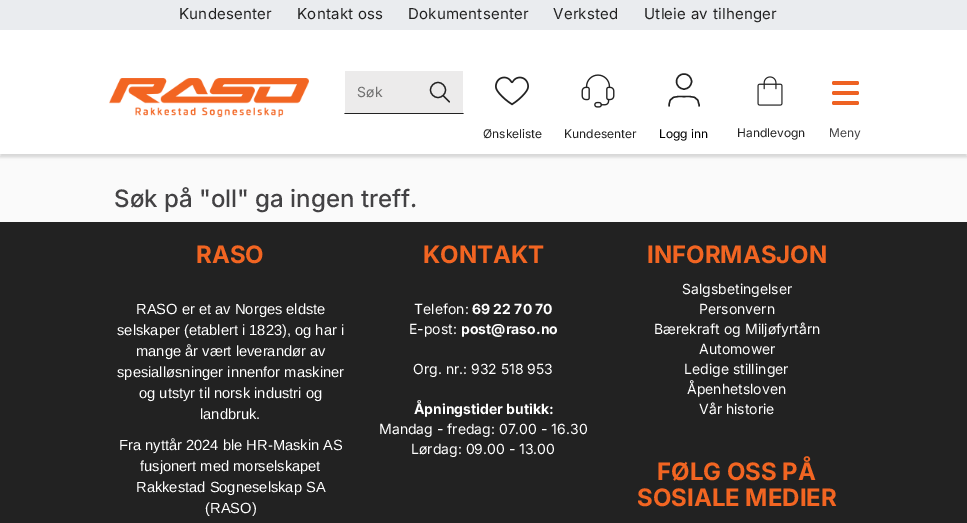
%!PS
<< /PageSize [967 523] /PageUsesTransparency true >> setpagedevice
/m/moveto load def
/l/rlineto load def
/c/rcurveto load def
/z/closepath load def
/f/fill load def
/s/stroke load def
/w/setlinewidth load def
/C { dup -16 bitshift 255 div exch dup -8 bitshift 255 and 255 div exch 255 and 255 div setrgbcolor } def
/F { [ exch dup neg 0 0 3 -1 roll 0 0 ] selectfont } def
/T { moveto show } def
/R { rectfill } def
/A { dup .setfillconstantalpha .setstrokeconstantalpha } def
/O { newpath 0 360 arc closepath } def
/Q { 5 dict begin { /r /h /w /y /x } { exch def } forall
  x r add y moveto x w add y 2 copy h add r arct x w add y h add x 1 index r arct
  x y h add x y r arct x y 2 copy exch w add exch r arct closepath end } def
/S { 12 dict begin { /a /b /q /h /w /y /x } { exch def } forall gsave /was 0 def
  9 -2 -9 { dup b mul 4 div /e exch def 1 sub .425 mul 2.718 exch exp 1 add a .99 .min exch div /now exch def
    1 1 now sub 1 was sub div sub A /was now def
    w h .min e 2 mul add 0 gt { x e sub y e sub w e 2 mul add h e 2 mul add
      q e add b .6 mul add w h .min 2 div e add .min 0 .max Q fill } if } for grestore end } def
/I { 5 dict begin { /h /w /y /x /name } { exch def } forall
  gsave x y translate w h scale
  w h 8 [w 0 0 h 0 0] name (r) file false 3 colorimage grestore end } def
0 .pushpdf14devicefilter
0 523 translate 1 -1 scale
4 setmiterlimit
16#FAFAFA C
0 0 967 523 R
16#FFFFFF C
0 154 967 2 R
16#000000 C
0 3 967 154 0 1.5 .16 S
16#EAECEF C
0 0 967 30 R
16#FFFFFF C
0 30 967 124 R
/Inter-Regular 15 F
16#222222 C
179 19 m .25 0 (Kundesenter) ashow
297 19 m .25 0 (Kontakt oss) ashow
408 19 m .25 0 (Dokumentsenter) ashow
553 19 m .25 0 (Verksted) ashow
644 19 m .25 0 (Utleie av tilhenger) ashow
(1.rgb) 109 78 200 39 I
464 114 m -120 0 l 1 -1 l 118 0 l z f
16#ECEBEB C
345 71 118 42 R
/Inter-Regular 14 F
16#707070 C
357 97 m .5 0 (Søk) ashow
16#222222 C
1.2 w
438 90 7.5 O s
1 setlinecap
1 setlinejoin
449.5 102 m -6.5 -6.5 l s
(2.rgb) 495 76 34 30 I
/Inter-Regular 12 F
(Ønskeliste) 483 138 T
(3.rgb) 757 76 26 30 I
(Handlevogn) 737 137 T
16#EE6223 C
832 81 27 4 2 Q f
832 91 27 4 2 Q f
832 101 27 4 2 Q f
16#434244 C
(Meny) 829 137 T
(4.rgb) 581 74 34 34 I
16#222222 C
(Kundesenter) 564 138 T
1.4 w
699 106 m 0 -10.5 -7 -9.5 -15 -9.5 c -8 0 -15 -1 -15 9.5 c s
0 setlinecap
0 setlinejoin
684 81.5 7.5 O s
16#000000 C
(Logg inn) 659 138 T
/Inter-Medium 24 F
16#434244 C
(Søk på "oll" ga ingen treff.) 114 207 T
16#222222 C
0 222 967 301 R
/Inter-Bold 24 F
16#F26522 C
(RASO) 196 263 T
/LiberationSans-Regular 14.7 F
16#FFFFFF C
(RASO er et av Norges eldste) 136 314 T
(selskaper \(etablert i 1823\), og har i) 117 335 T
(mange år vært leverandør av) 136 356 T
(spesialløsninger innenfor maskiner) 117 377 T
(og utstyr til norsk industri og) 139 398 T
(landbruk.) 200 419 T
(Fra nyttår 2024 ble HR-Maskin AS) 119 450 T
(fusjonert med morselskapet) 140 471 T
(Rakkestad Sogneselskap SA) 136 492 T
(\(RASO\)) 205 513 T
/Inter-Bold 24 F
16#F26522 C
(KONTAKT) 423 263 T
/Inter-Regular 14 F
16#FFFFFF C
(Telefon:) 414 314 T
/Inter-Bold 14 F
(69 22 70 70) 472 314 T
/Inter-Regular 14 F
(E-post:) 409 334 T
/Inter-Bold 14 F
(post@raso.no) 461 334 T
/Inter-Regular 14 F
(Org. nr.: 932 518 953) 413 374 T
/Inter-Bold 14 F
(Åpningstider butikk:) 414 414 T
/Inter-Regular 14 F
(Mandag - fredag: 07.00 - 16.30) 379 434 T
(Lørdag: 09.00 - 13.00) 411 454 T
/Inter-Bold 24 F
16#F26522 C
(INFORMASJON) 647 263 T
/Inter-Regular 14 F
16#FFFFFF C
(Salgsbetingelser) 682 294 T
(Personvern) 699 314 T
(Bærekraft og Miljøfyrtårn) 654 334 T
(Automower) 699 354 T
(Ledige stillinger) 684 374 T
(Åpenhetsloven) 687 394 T
(Vår historie) 699 414 T
/Inter-Bold 24 F
16#F26522 C
(FØLG OSS PÅ) 657 480 T
(SOSIALE MEDIER) 637 506 T
.poppdf14devicefilter showpage
